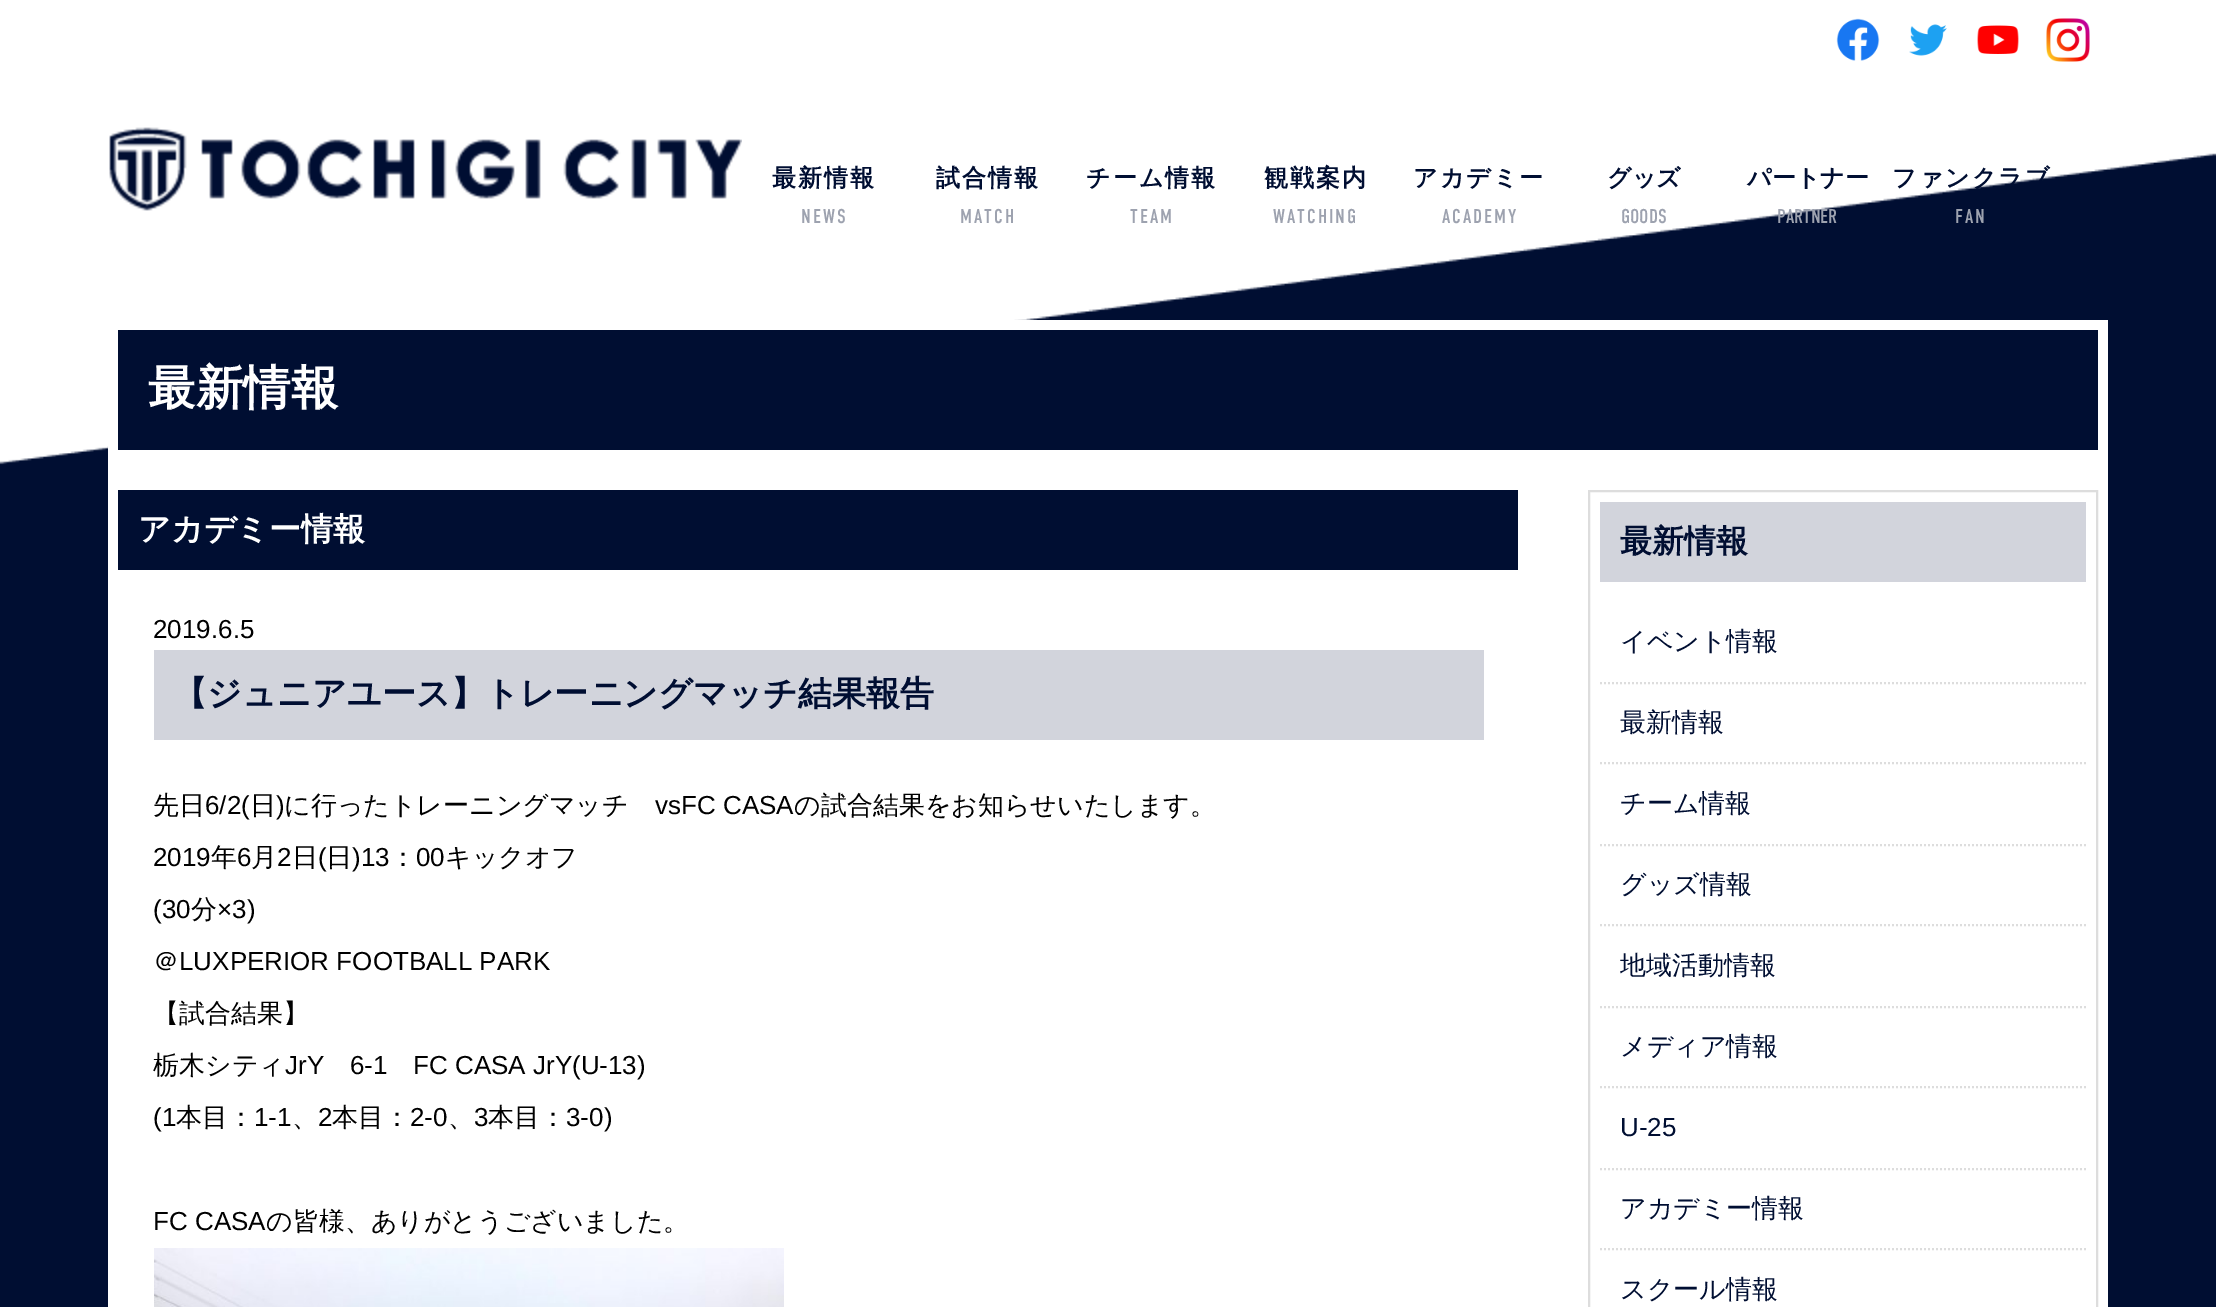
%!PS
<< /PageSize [2216 1307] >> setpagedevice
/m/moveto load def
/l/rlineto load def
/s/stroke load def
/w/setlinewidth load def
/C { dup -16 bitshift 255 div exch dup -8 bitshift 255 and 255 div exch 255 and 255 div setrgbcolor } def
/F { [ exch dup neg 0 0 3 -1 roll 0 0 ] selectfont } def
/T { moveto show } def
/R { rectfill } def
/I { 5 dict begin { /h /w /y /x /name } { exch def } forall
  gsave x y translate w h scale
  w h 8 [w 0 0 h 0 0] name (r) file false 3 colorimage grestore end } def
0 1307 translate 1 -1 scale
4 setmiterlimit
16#000E32 C
0 0 2216 1307 R
(1.rgb) 0 0 2216 465 I
(2.rgb) 1836 18 44 43 I
(3.rgb) 1909 24 38 32 I
(4.rgb) 1977 25 42 29 I
(5.rgb) 2046 18 44 44 I
(6.rgb) 109 127 633 84 I
/WenQuanYiZenHei-Bold 24 F
772 186 m 2 0 (最新情報) ashow
/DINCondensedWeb-Regular 20 F
16#9DA2AF C
801 223 m 2 0 (NEWS) ashow
/WenQuanYiZenHei-Bold 24 F
16#000E32 C
936 186 m 2 0 (試合情報) ashow
/DINCondensedWeb-Regular 20 F
16#9DA2AF C
960 223 m 2 0 (MATCH) ashow
/WenQuanYiZenHei-Bold 24 F
16#000E32 C
1086 186 m 2 0 (チーム情報) ashow
/DINCondensedWeb-Regular 20 F
16#9DA2AF C
1130 223 m 2 0 (TEAM) ashow
/WenQuanYiZenHei-Bold 24 F
16#000E32 C
1264 186 m 2 0 (観戦案内) ashow
/DINCondensedWeb-Regular 20 F
16#9DA2AF C
1273 223 m 2 0 (WATCHING) ashow
/WenQuanYiZenHei-Bold 24 F
16#000E32 C
1413 186 m 2 0 (アカデミー) ashow
/DINCondensedWeb-Regular 20 F
16#9DA2AF C
1442 223 m 2 0 (ACADEMY) ashow
/WenQuanYiZenHei-Bold 24 F
16#000E32 C
(グッズ) 1607 186 T
/DINCondensedWeb-Regular 20 F
16#9DA2AF C
(GOODS) 1621 223 T
/WenQuanYiZenHei-Bold 24 F
16#000E32 C
(パートナー) 1747 186 T
/DINCondensedWeb-Regular 20 F
16#9DA2AF C
(PARTNER) 1777 223 T
/WenQuanYiZenHei-Bold 24 F
16#000E32 C
1892 186 m 2 0 (ファンクラブ) ashow
/DINCondensedWeb-Regular 20 F
16#9DA2AF C
1955 223 m 2 0 (FAN) ashow
16#FFFFFF C
108 320 2000 987 R
16#000E32 C
118 330 1980 120 R
/WenQuanYiZenHei-Bold 47.5 F
16#FFFFFF C
(最新情報) 148 404 T
16#000E32 C
118 490 1400 80 R
/WenQuanYiZenHei-Bold 32 F
16#FFFFFF C
(アカデミー情報) 138 540 T
/LiberationSans-Regular 26 F
16#000000 C
(2019.6.5) 153 638 T
16#D2D4DC C
154 650 1330 90 R
/WenQuanYiZenHei-Bold 34.1 F
16#000E32 C
(【ジュニアユース】トレーニングマッチ結果報告) 173 705 T
/WenQuanYiZenHei-Medium 26 F
16#000000 C
(先日) 153 814 T
/LiberationSans-Regular 26 F
(6/2\() 205 814 T
/WenQuanYiZenHei-Medium 26 F
(日) 250 814 T
/LiberationSans-Regular 26 F
(\)) 276 814 T
/WenQuanYiZenHei-Medium 26 F
(に行ったトレーニングマッチ) 284 814 T
/LiberationSans-Regular 26 F
(vsFC CASA) 655 814 T
/WenQuanYiZenHei-Medium 26 F
(の試合結果をお知らせいたします。) 794 814 T
/LiberationSans-Regular 26 F
(2019) 153 866 T
/WenQuanYiZenHei-Medium 26 F
(年) 211 866 T
/LiberationSans-Regular 26 F
(6) 237 866 T
/WenQuanYiZenHei-Medium 26 F
(月) 251 866 T
/LiberationSans-Regular 26 F
(2) 277 866 T
/WenQuanYiZenHei-Medium 26 F
(日) 292 866 T
/LiberationSans-Regular 26 F
(\() 318 866 T
/WenQuanYiZenHei-Medium 26 F
(日) 326 866 T
/LiberationSans-Regular 26 F
(\)13) 352 866 T
/WenQuanYiZenHei-Medium 26 F
(：) 390 866 T
/LiberationSans-Regular 26 F
(00) 416 866 T
/WenQuanYiZenHei-Medium 26 F
(キックオフ) 445 866 T
/LiberationSans-Regular 26 F
(\(30) 153 918 T
/WenQuanYiZenHei-Medium 26 F
(分) 191 918 T
/LiberationSans-Regular 26 F
(×3\)) 217 918 T
/WenQuanYiZenHei-Medium 26 F
(＠) 153 970 T
/LiberationSans-Regular 26 F
(LUXPERIOR FOOTBALL PARK) 179 970 T
/WenQuanYiZenHei-Medium 26 F
(【試合結果】) 153 1022 T
(栃木シティ) 153 1074 T
/LiberationSans-Regular 26 F
(JrY) 285 1074 T
(6-1) 350 1074 T
(FC CASA JrY\(U-13\)) 413 1074 T
(\(1) 153 1126 T
/WenQuanYiZenHei-Medium 26 F
(本目：) 176 1126 T
/LiberationSans-Regular 26 F
(1-1) 254 1126 T
/WenQuanYiZenHei-Medium 26 F
(、) 292 1126 T
/LiberationSans-Regular 26 F
(2) 318 1126 T
/WenQuanYiZenHei-Medium 26 F
(本目：) 332 1126 T
/LiberationSans-Regular 26 F
(2-0) 410 1126 T
/WenQuanYiZenHei-Medium 26 F
(、) 448 1126 T
/LiberationSans-Regular 26 F
(3) 474 1126 T
/WenQuanYiZenHei-Medium 26 F
(本目：) 488 1126 T
/LiberationSans-Regular 26 F
(3-0\)) 566 1126 T
(FC CASA) 153 1230 T
/WenQuanYiZenHei-Medium 26 F
(の皆様、ありがとうございました。) 266 1230 T
(7.rgb) 154 1248 630 59 I
16#DDDDDD C
2 w
1589 491 508 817 rectstroke
16#D2D4DC C
1600 502 486 80 R
/WenQuanYiZenHei-Bold 32 F
16#000E32 C
(最新情報) 1620 552 T
16#DDDDDD C
[2 2] 0 setdash
1600 683 m 486 0 l s
/WenQuanYiZenHei-Medium 26 F
16#000E32 C
(イベント情報) 1620 650 T
16#DDDDDD C
1600 763 m 486 0 l s
16#000E32 C
(最新情報) 1620 731 T
16#DDDDDD C
1600 845 m 486 0 l s
16#000E32 C
(チーム情報) 1620 812 T
16#DDDDDD C
1600 925 m 486 0 l s
16#000E32 C
(グッズ情報) 1620 893 T
16#DDDDDD C
1600 1007 m 486 0 l s
16#000E32 C
(地域活動情報) 1620 974 T
16#DDDDDD C
1600 1087 m 486 0 l s
16#000E32 C
(メディア情報) 1620 1055 T
16#DDDDDD C
1600 1169 m 486 0 l s
/LiberationSans-Regular 26 F
16#000E32 C
(U-25) 1620 1136 T
16#DDDDDD C
1600 1249 m 486 0 l s
/WenQuanYiZenHei-Medium 26 F
16#000E32 C
(アカデミー情報) 1620 1217 T
(スクール情報) 1620 1298 T
showpage
